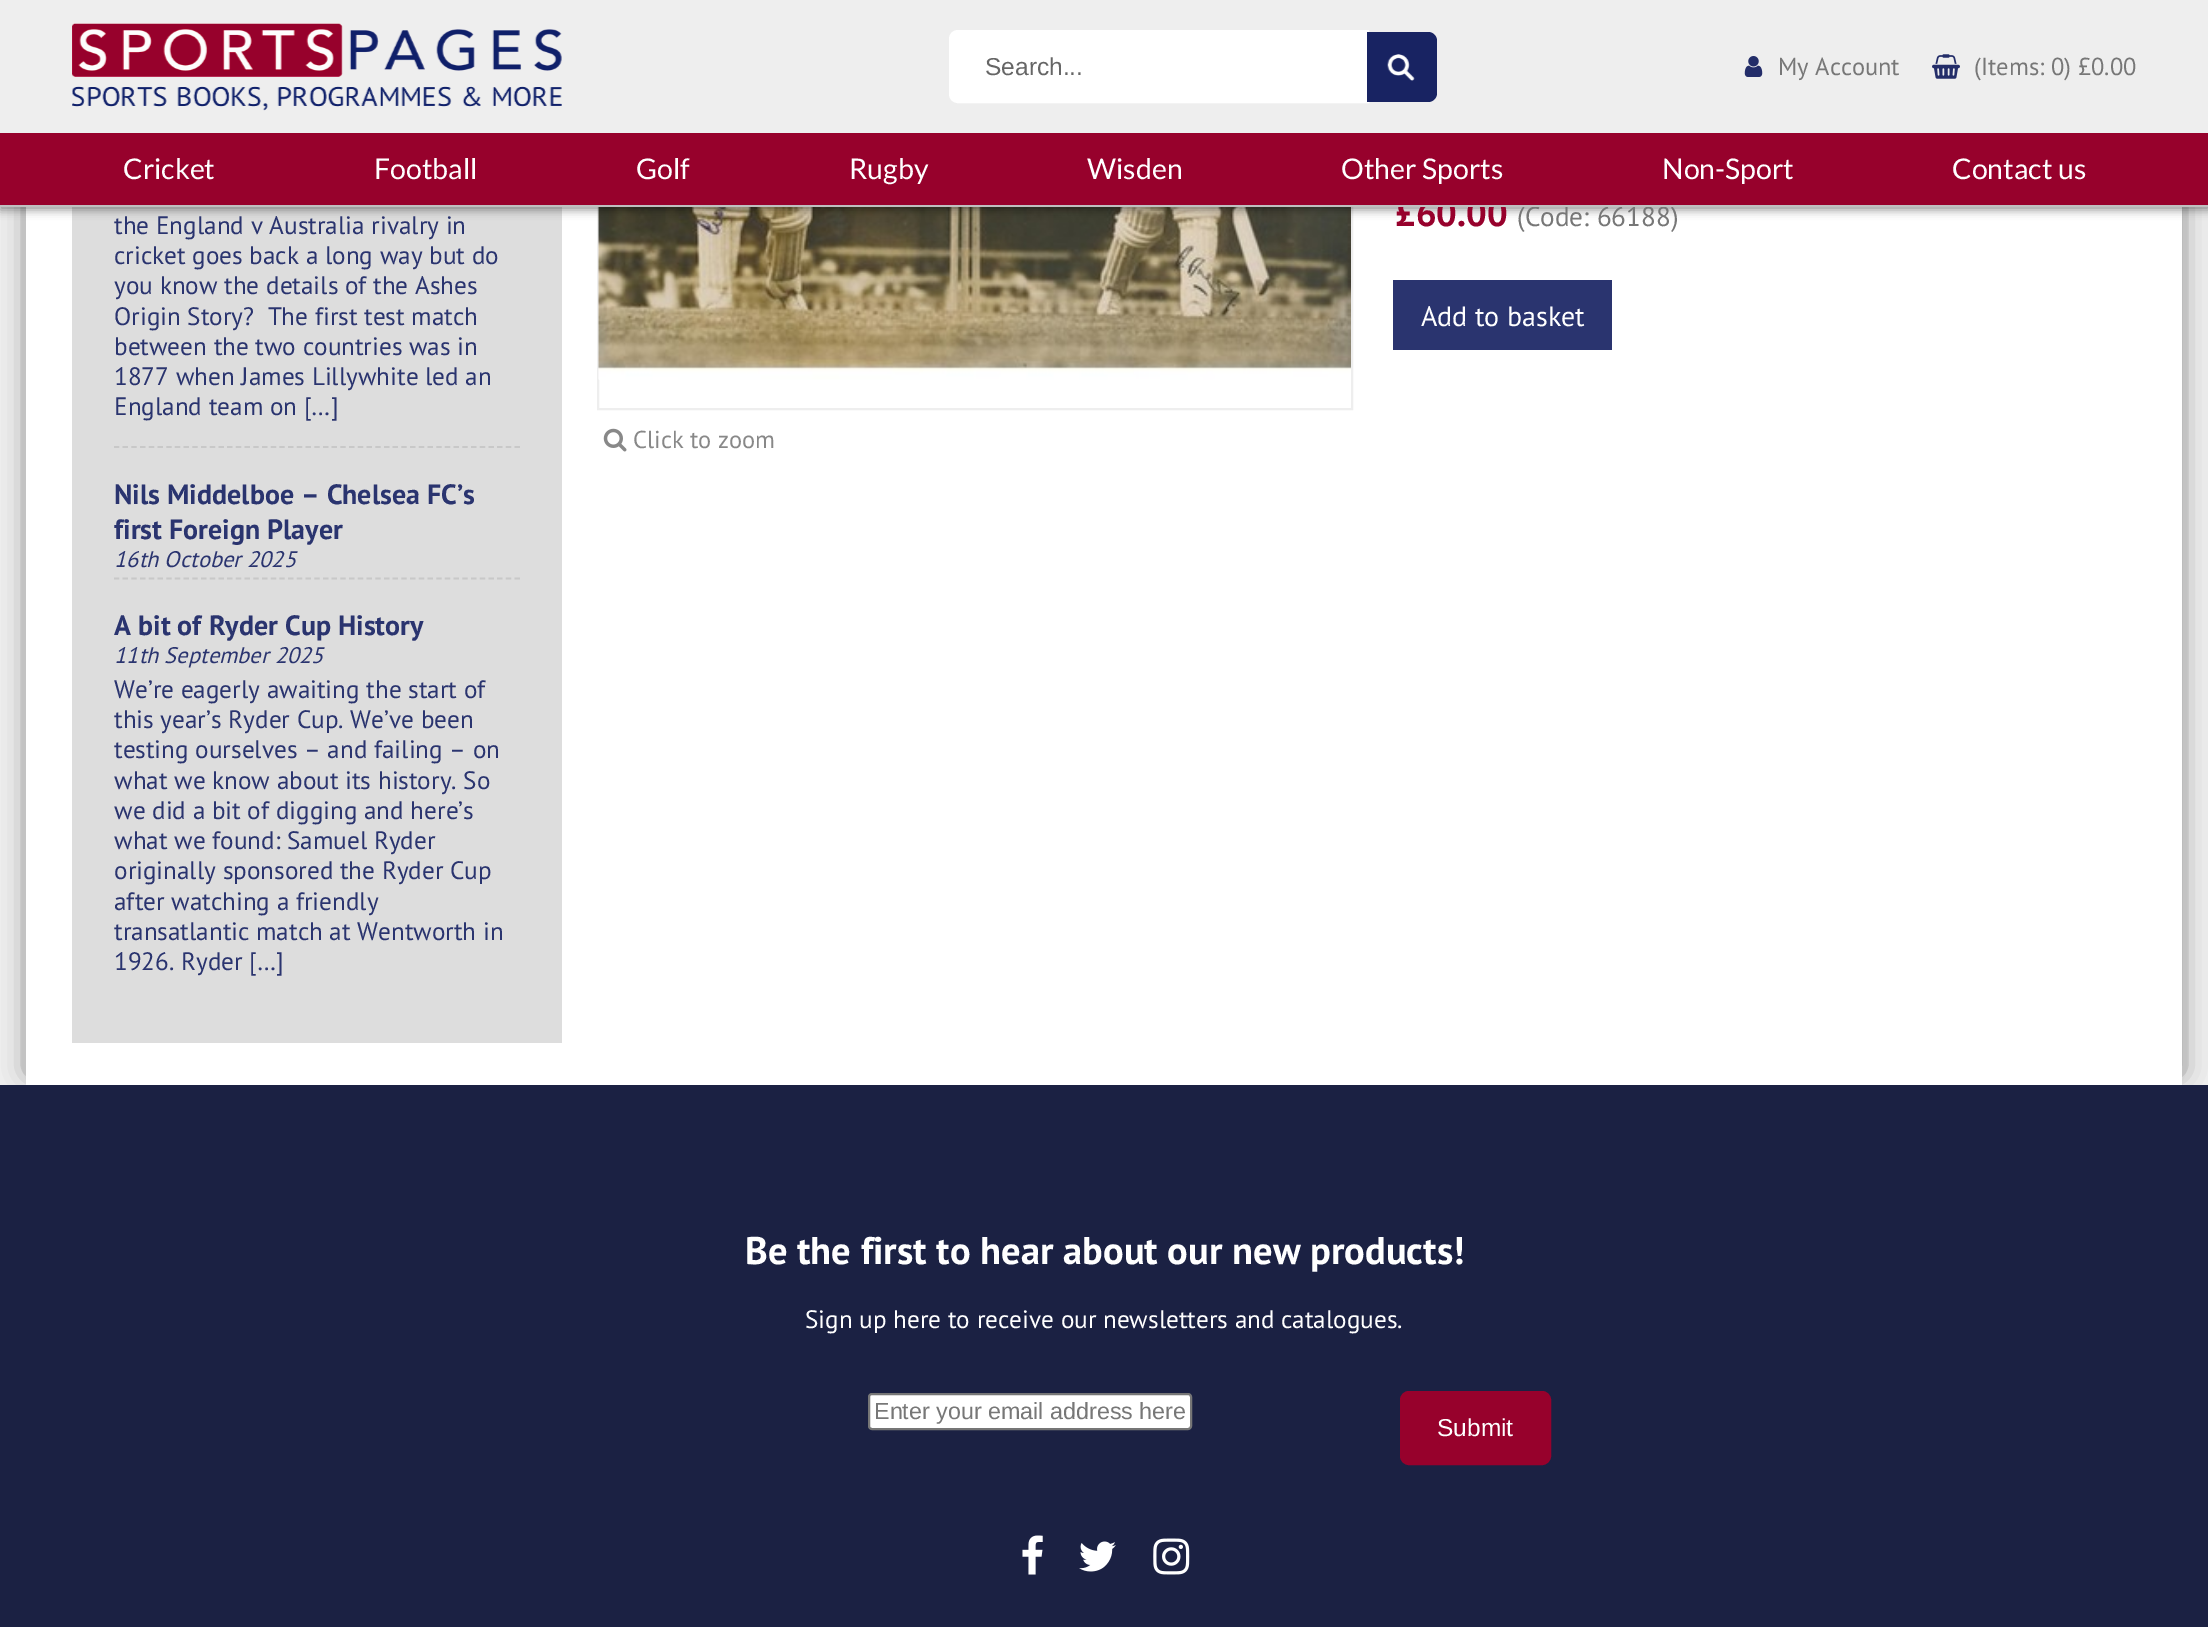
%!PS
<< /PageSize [2208 1627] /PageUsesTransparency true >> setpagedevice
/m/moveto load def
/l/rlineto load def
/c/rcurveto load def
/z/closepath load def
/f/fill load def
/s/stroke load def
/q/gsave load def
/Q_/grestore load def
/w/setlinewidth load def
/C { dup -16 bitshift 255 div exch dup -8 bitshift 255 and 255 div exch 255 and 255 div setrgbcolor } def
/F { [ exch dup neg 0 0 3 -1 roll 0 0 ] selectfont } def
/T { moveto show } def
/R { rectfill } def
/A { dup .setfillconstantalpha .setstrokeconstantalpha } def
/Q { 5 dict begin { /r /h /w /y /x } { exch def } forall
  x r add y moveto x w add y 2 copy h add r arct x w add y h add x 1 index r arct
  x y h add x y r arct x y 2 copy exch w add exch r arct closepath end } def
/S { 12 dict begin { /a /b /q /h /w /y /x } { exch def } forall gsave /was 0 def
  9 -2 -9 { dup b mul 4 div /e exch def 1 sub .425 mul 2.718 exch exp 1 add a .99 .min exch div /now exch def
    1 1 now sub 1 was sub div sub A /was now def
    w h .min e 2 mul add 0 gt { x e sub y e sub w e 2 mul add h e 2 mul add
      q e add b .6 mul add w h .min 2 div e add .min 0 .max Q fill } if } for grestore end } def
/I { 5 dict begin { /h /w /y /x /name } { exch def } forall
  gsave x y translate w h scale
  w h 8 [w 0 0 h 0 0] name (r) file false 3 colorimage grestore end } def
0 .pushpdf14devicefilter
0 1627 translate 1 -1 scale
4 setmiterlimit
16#EEEEEE C
0 0 2208 1627 R
16#666666 C
30 -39 2128 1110 0 13 1 S
51 -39 2128 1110 0 13 1 S
16#FFFFFF C
26 207 2156 878 R
16#DDDDDD C
72 207 490 836 R
16#EEEEEE C
2 w
598 -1 754 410 rectstroke
(5.rgb) 598 207 753 173 I
16#000000 C
0 4 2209 206 0 4.5 .4 S
16#EEEEEE C
0 0 2208 133 R
/PTSans-Bold 36.5 F
16#97012C C
(£60.00) 1395 226 T
/PTSans-Regular 27.25 F
16#777777 C
(\(Code: 66188\)) 1517 226 T
16#C0C0C0 C
0 205 2208 2 R
(1.rgb) 72 23 490 88 I
16#FFFFFF C
958 31 m 410 0 l 0 71 l -410 0 l -4.5 0 -8 -3.5 -8 -8 c 0 -55 l 0 -4.5 3.5 -8 8 -8 c z q f Q_
s
/LiberationSans-Regular 24.5 F
16#666666 C
(Search...) 985 75 T
16#182362 C
1367 32 m 61 0 l 5 0 9 4 9 9 c 0 52 l 0 5 -4 9 -9 9 c -61 0 l z f
(2.rgb) 1387 54 28 27 I
(3.rgb) 1744 56 19 21 I
/PTSans-Regular 24.5 F
16#777777 C
(My Account) 1778 75 T
(4.rgb) 1932 54 28 25 I
(\(Items: 0\) £0.00) 1974 75 T
16#97012C C
0 133 2208 72 R
/Lato-Regular 28.5 F
16#FFFFFF C
(Cricket) 123 179 T
(Football) 374 179 T
(Golf) 636 179 T
(Rugby) 849 179 T
(Wisden) 1087 179 T
(Other Sports) 1341 179 T
(Non-Sport) 1662 179 T
(Contact us) 1952 179 T
/PTSans-Regular 25.2 F
16#2A346F C
(the England v Australia rivalry in) 114 234 T
(cricket goes back a long way but do) 114 264 T
(you know the details of the Ashes) 114 294 T
(Origin Story?  The first test match) 114 325 T
(between the two countries was in) 114 355 T
(1877 when James Lillywhite led an) 114 385 T
(England team on […]) 114 415 T
16#C8C8C8 C
1.8 w
[5.25 3.46] 0 setdash
114 447 m 406 0 l s
/PTSans-Bold 28 F
16#2A346F C
(Nils Middelboe – Chelsea FC’s) 114 504 T
(first Foreign Player) 114 539 T
/PTSans-Italic 22.5 F
(16th October 2025) 114 567 T
16#C8C8C8 C
114 578.5 m 406 0 l s
/PTSans-Bold 28 F
16#2A346F C
(A bit of Ryder Cup History) 114 635 T
/PTSans-Italic 22.5 F
(11th September 2025) 114 663 T
/PTSans-Regular 25.2 F
(We’re eagerly awaiting the start of) 114 698 T
(this year’s Ryder Cup. We’ve been) 114 728 T
(testing ourselves – and failing – on) 114 758 T
(what we know about its history. So) 114 789 T
(we did a bit of digging and here’s) 114 819 T
(what we found: Samuel Ryder) 114 849 T
(originally sponsored the Ryder Cup) 114 879 T
(after watching a friendly) 114 910 T
(transatlantic match at Wentworth in) 114 940 T
(1926. Ryder […]) 114 970 T
1393 280 219 70 R
/PTSans-Regular 28 F
16#FFFFFF C
(Add to basket) 1421 326 T
(6.rgb) 603 428 24 24 I
/PTSans-Regular 24.5 F
16#888888 C
(Click to zoom) 633 448 T
16#1B2143 C
0 1085 2208 542 R
/PTSans-Bold 38.5 F
16#FFFFFF C
(Be the first to hear about our new products!) 745 1264 T
/PTSans-Regular 25.2 F
(Sign up here to receive our newsletters and catalogues.) 805 1328 T
869 1394 322 35 3 Q q f Q_
16#767676 C
2 w
[] 0 setdash
s
q
875 1398 310 27 rectclip
/LiberationSans-Regular 23.3 F
16#777777 C
(Enter your email address here) 874 1419 T
Q_
16#97012C C
1401 1392 149 72 8 Q q f Q_
s
/LiberationSans-Regular 24.5 F
16#FFFFFF C
(Submit) 1437 1436 T
(7.rgb) 1022 1535 21 40 I
(8.rgb) 1079 1541 37 31 I
(9.rgb) 1153 1538 37 37 I
.poppdf14devicefilter showpage
